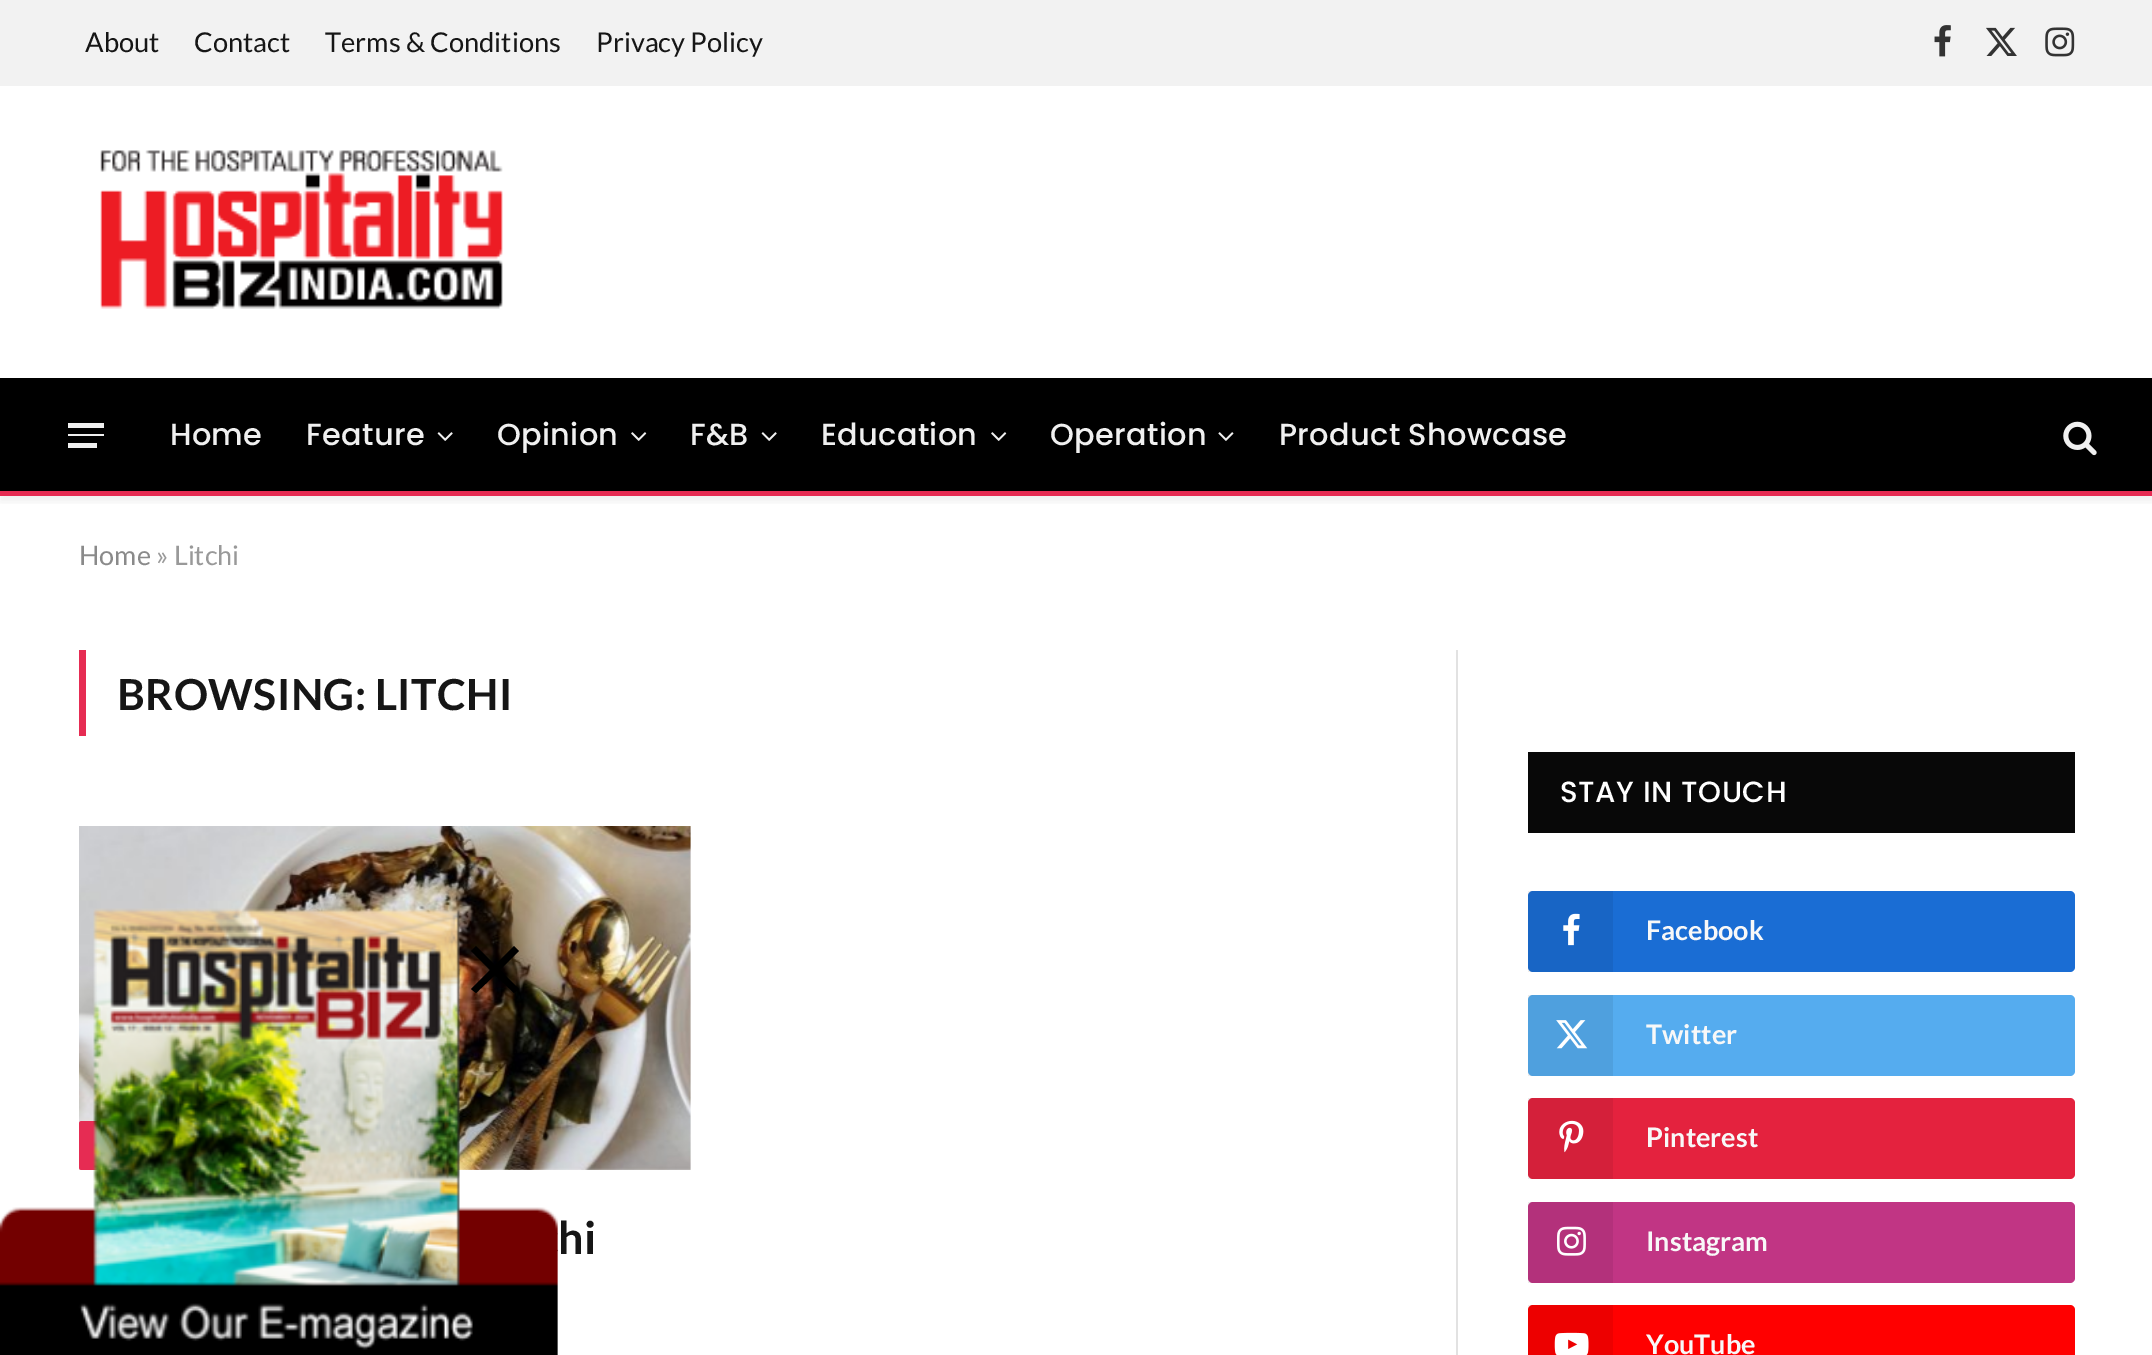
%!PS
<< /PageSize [2152 1355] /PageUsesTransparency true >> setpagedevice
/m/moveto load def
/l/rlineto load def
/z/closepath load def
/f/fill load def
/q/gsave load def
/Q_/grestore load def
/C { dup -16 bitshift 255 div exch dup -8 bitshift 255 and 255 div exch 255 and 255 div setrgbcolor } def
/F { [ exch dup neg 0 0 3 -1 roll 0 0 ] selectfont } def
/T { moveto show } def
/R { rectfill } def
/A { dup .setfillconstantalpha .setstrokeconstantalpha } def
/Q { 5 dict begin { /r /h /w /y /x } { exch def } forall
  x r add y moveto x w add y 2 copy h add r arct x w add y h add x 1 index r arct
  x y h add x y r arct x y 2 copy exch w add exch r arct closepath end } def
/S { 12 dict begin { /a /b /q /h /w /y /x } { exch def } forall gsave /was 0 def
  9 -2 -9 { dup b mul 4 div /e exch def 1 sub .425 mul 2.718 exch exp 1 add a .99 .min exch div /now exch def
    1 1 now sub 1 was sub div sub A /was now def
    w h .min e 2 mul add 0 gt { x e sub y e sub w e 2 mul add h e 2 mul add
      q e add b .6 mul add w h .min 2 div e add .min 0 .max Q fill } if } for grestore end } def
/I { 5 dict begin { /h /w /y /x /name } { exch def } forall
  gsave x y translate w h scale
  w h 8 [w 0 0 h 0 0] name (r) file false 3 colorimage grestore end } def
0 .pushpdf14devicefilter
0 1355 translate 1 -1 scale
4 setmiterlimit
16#FFFFFF C
0 0 2152 1355 R
q
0 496 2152 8 rectclip
16#0A0A0A C
0 7 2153 495 0 4.5 .06 S
Q_
16#F2F2F2 C
0 0 2152 86 R
/Lato-Regular 27.25 F
16#161616 C
(About) 85 52 T
(Contact) 194 52 T
(Terms & Conditions) 325 52 T
(Privacy Policy) 596 52 T
(1.rgb) 1934 25 17 32 I
(2.rgb) 1986 27 31 29 I
(3.rgb) 2045 27 30 30 I
(4.rgb) 100 150 403 159 I
16#000000 C
0 378 2152 113 R
16#E62C53 C
0 491 2152 5 R
16#F0F0F0 C
68 443 29 5 R
68 423 36 5 R
68 434 36 2 R
/Poppins-Medium 30.4 F
170 445 m .3 0 (Home) ashow
306 445 m .3 0 (Feature) ashow
(5.rgb) 437 432 16 9 I
497 445 m .3 0 (Opinion) ashow
(6.rgb) 631 432 16 9 I
690 445 m .3 0 (F&B) ashow
(5.rgb) 761 432 16 9 I
821 445 m .3 0 (Education) ashow
(6.rgb) 991 432 16 9 I
1050 445 m .3 0 (Operation) ashow
(7.rgb) 1218 432 16 9 I
1279 445 m .3 0 (Product Showcase) ashow
(8.rgb) 2063 421 34 35 I
/Lato-Regular 27 F
16#8A8A8A C
(Home) 79 565 T
16#999999 C
(» Litchi) 156 565 T
16#E62C53 C
79 650 7 86 R
/Lato-Bold 42.75 F
16#161616 C
117 710 m .4 0 (BROWSING: LITCHI) ashow
(9.rgb) 79 826 612 344 I
16#E62C53 C
79 1121 162 49 2 Q f
/Lato-Bold 45 F
16#161616 C
(hi) 558 1254 T
16#E2E2E2 C
1456 650 2 705 R
16#080808 C
1528 752 547 81 R
/Poppins-Medium 29.25 F
16#FFFFFF C
1560 802 m .6 0 (STAY IN TOUCH) ashow
16#1A6DD4 C
1528 891 547 81 5 Q f
0.07 A
16#000000 C
1528 891 85 81 R
1 A
(10.rgb) 1563 913 17 33 I
/Lato-Bold 27 F
16#F8F8F8 C
(Facebook) 1646 940 T
16#55ACEF C
1528 995 547 81 5 Q f
0.07 A
16#000000 C
1528 995 85 81 R
1 A
(11.rgb) 1556 1020 32 29 I
16#F8F8F8 C
(Twitter) 1646 1044 T
16#E4223E C
1528 1098 547 81 5 Q f
0.07 A
16#000000 C
1528 1098 85 81 R
1 A
(12.rgb) 1559 1120 25 33 I
16#F8F8F8 C
(Pinterest) 1646 1147 T
16#C13584 C
1528 1202 547 81 5 Q f
0.07 A
16#000000 C
1528 1202 85 81 R
1 A
(13.rgb) 1557 1226 29 30 I
16#F8F8F8 C
(Instagram) 1646 1251 T
16#FF0000 C
1528 1305 547 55 5 Q f
0.07 A
16#000000 C
1528 1305 85 50 R
1 A
(14.rgb) 1554 1332 35 23 I
16#F8F8F8 C
(YouTube) 1646 1354 T
(15.rgb) 0 908 558 447 I
16#000000 C
519 951 m -5 -5 l -19 19 l -19 -19 l -5 5 l 19 19 l -19 19 l 5 4 l 19 -18 l 19 18 l 5 -4 l -19 -19 l z f
.poppdf14devicefilter showpage
